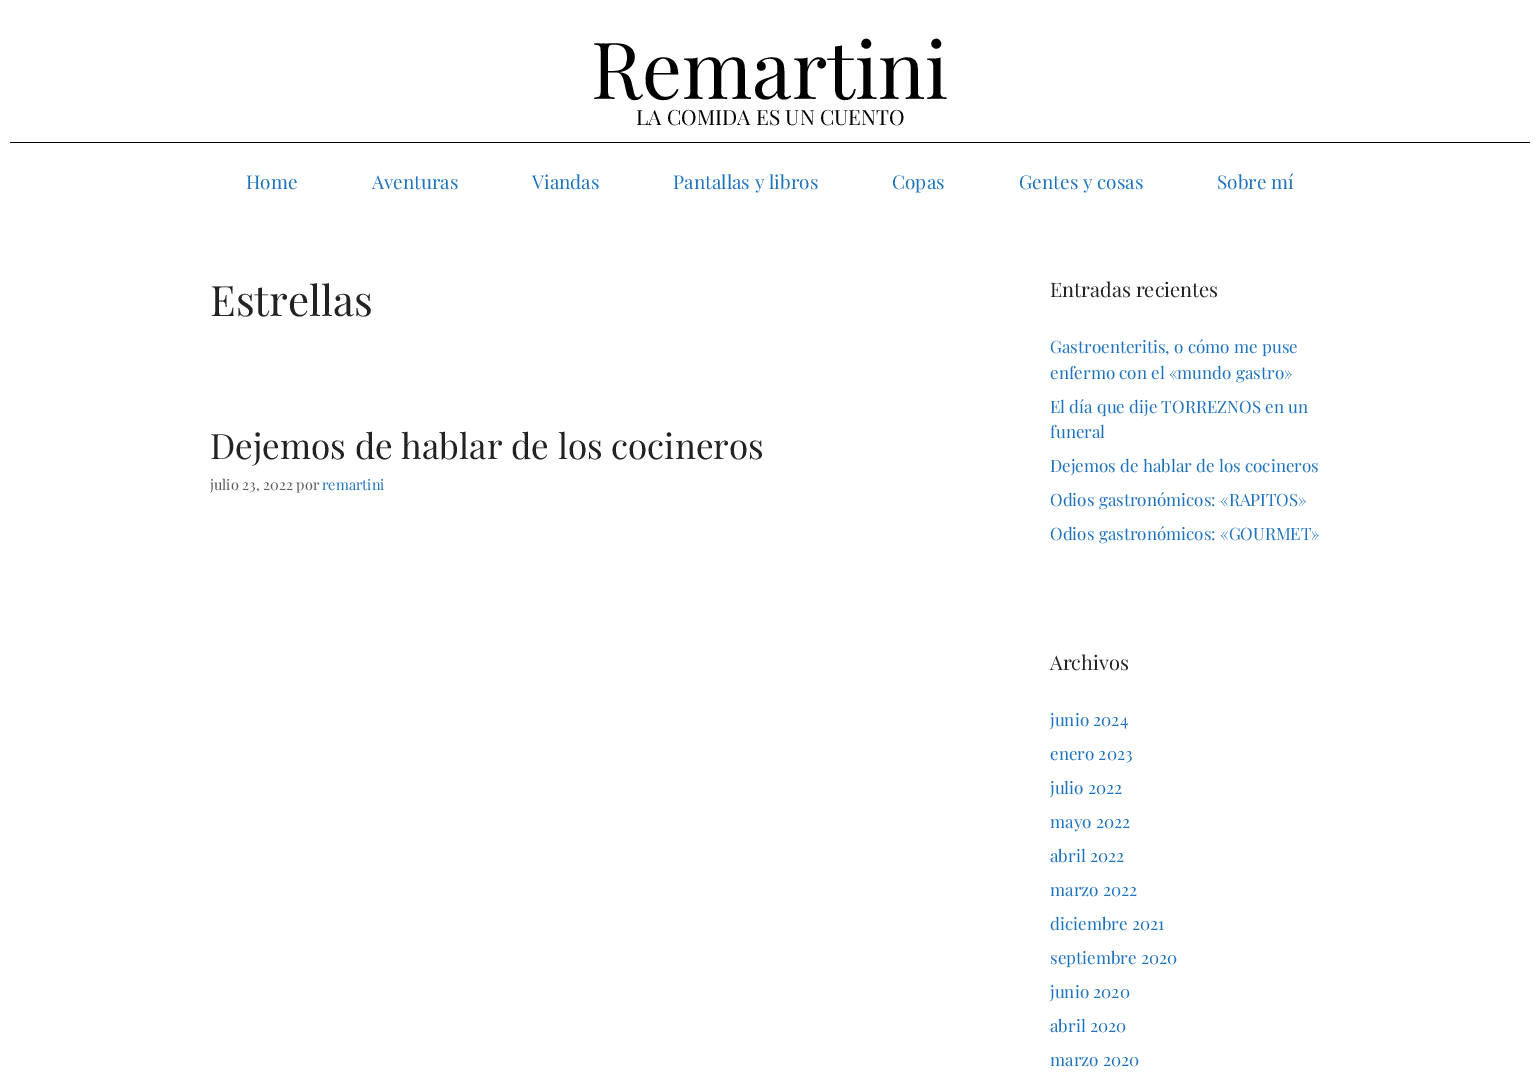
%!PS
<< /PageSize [1540 1087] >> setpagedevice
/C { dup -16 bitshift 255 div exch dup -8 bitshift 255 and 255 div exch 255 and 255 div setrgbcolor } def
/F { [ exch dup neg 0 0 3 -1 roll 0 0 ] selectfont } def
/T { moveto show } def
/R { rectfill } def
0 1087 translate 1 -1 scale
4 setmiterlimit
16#FFFFFF C
0 0 1540 1087 R
/PlayfairDisplay-Regular 79 F
16#000000 C
(Remartini) 591 99 T
/PlayfairDisplay-Regular 21 F
(LA COMIDA ES UN CUENTO) 636 125 T
10 142 1520 1 R
/PlayfairDisplay-Regular 19 F
16#1E73BE C
(Home) 246 189 T
(Aventuras) 372 189 T
(Viandas) 532 189 T
(Pantallas y libros) 673 189 T
(Copas) 892 189 T
(Gentes y cosas) 1019 189 T
(Sobre mí) 1217 189 T
/PlayfairDisplay-Regular 42 F
16#222222 C
(Estrellas) 210 316 T
/PlayfairDisplay-Regular 35 F
(Dejemos de hablar de los cocineros) 210 459 T
/PlayfairDisplay-Regular 14.5 F
16#595959 C
(julio 23, 2022 por) 210 490 T
16#1E73BE C
(remartini) 322 490 T
/PlayfairDisplay-Regular 20 F
16#222222 C
(Entradas recientes) 1050 297 T
/PlayfairDisplay-Regular 17 F
16#1E73BE C
(Gastroenteritis, o cómo me puse) 1050 353 T
(enfermo con el «mundo gastro») 1050 379 T
(El día que dije TORREZNOS en un) 1050 413 T
(funeral) 1050 438 T
(Dejemos de hablar de los cocineros) 1050 472 T
(Odios gastronómicos: «RAPITOS») 1050 506 T
(Odios gastronómicos: «GOURMET») 1050 540 T
/PlayfairDisplay-Regular 20 F
16#222222 C
(Archivos) 1050 670 T
/PlayfairDisplay-Regular 17 F
16#1E73BE C
(junio 2024) 1050 726 T
(enero 2023) 1050 760 T
(julio 2022) 1050 794 T
(mayo 2022) 1050 828 T
(abril 2022) 1050 862 T
(marzo 2022) 1050 896 T
(diciembre 2021) 1050 930 T
(septiembre 2020) 1050 964 T
(junio 2020) 1050 998 T
(abril 2020) 1050 1032 T
(marzo 2020) 1050 1066 T
showpage
